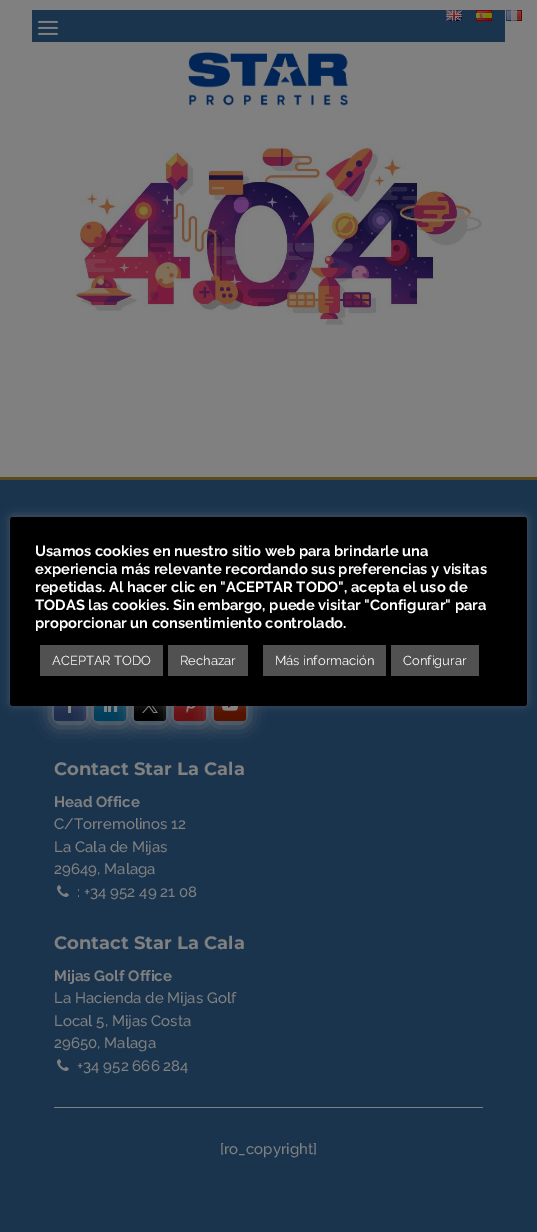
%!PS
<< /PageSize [537 1232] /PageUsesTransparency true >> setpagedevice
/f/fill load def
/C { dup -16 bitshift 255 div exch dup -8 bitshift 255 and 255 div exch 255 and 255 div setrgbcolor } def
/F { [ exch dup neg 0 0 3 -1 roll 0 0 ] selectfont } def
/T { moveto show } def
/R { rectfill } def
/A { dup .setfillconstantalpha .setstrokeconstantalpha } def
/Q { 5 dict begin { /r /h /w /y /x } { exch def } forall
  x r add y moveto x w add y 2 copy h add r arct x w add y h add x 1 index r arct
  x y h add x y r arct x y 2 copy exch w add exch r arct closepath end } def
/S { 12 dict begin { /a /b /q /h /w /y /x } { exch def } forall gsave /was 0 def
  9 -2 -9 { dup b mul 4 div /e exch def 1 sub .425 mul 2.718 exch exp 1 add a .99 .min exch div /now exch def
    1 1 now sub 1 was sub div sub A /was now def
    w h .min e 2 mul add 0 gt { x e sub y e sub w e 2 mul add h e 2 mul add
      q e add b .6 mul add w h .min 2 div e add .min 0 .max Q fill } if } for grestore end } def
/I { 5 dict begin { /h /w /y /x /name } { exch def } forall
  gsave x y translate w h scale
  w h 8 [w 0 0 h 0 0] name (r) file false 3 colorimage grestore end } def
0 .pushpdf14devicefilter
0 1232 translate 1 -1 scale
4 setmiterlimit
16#808080 C
0 0 537 1232 R
16#1A344D C
0 480 537 752 R
16#808080 C
54 691 32 32 3 9 1 S
16#1E2D4C C
54 689 32 32 3 Q f
16#808080 C
94 691 32 32 3 9 1 S
(7.rgb) 68 706 4 7 I
16#003E5B C
94 689 32 32 3 Q f
16#808080 C
134 691 32 32 3 9 1 S
(8.rgb) 104 706 14 6 I
16#000000 C
134 689 32 32 3 Q f
16#808080 C
174 691 32 32 3 9 1 S
(9.rgb) 142 706 16 7 I
16#661014 C
174 689 32 32 3 Q f
16#808080 C
214 691 32 32 3 9 1 S
(10.rgb) 185 706 11 7 I
16#541200 C
214 689 32 32 3 Q f
(11.rgb) 222 706 16 5 I
16#ACABAB C
10 516 517 189 3 5 .3 S
16#000000 C
10 517 517 189 3 Q f
/Raleway-Bold 14.7 F
16#FFFFFF C
(Usamos cookies en nuestro sitio web para brindarle una) 35 556 T
(experiencia más relevante recordando sus preferencias y visitas) 35 574 T
(repetidas. Al hacer clic en "ACEPTAR TODO", acepta el uso de) 35 592 T
(TODAS las cookies. Sin embargo, puede visitar "Configurar" para) 35 610 T
(proporcionar un consentimiento controlado.) 35 628 T
16#515151 C
40 645 123 31 R
/Raleway-Regular 13 F
16#FFFFFF C
(ACEPTAR TODO) 52 665 T
16#515151 C
168 645 80 31 R
16#FFFFFF C
(Rechazar) 180 665 T
16#515151 C
263 645 123 31 R
16#FFFFFF C
(Más información) 275 665 T
16#515151 C
391 645 88 31 R
16#FFFFFF C
(Configurar) 403 665 T
16#1A344D C
32 10 473 32 R
(1.rgb) 38 20 20 15 I
(2.rgb) 446 10 16 11 I
(3.rgb) 476 10 16 11 I
(4.rgb) 506 10 16 11 I
(5.rgb) 188 52 160 54 I
(6.rgb) 71 143 411 182 I
16#5B4A1D C
0 477 537 3 R
/Montserrat-Bold 18 F
16#808080 C
(Contact Star La Cala) 54 775 T
/Raleway-Bold 15 F
(Head Office) 54 807 T
/Raleway-Medium 15 F
(C/Torremolinos 12) 54 829 T
(La Cala de Mijas) 54 852 T
(29649, Malaga) 54 874 T
(12.rgb) 57 885 12 12 I
(: +34 952 49 21 08) 77 897 T
/Montserrat-Bold 18 F
(Contact Star La Cala) 54 949 T
/Raleway-Bold 15 F
(Mijas Golf Office) 54 981 T
/Raleway-Medium 15 F
(La Hacienda de Mijas Golf) 54 1003 T
(Local 5, Mijas Costa) 54 1026 T
(29650, Malaga) 54 1048 T
(12.rgb) 57 1059 12 12 I
(+34 952 666 284) 77 1071 T
54 1107 429 1 R
([ro_copyright]) 220 1154 T
.poppdf14devicefilter showpage
